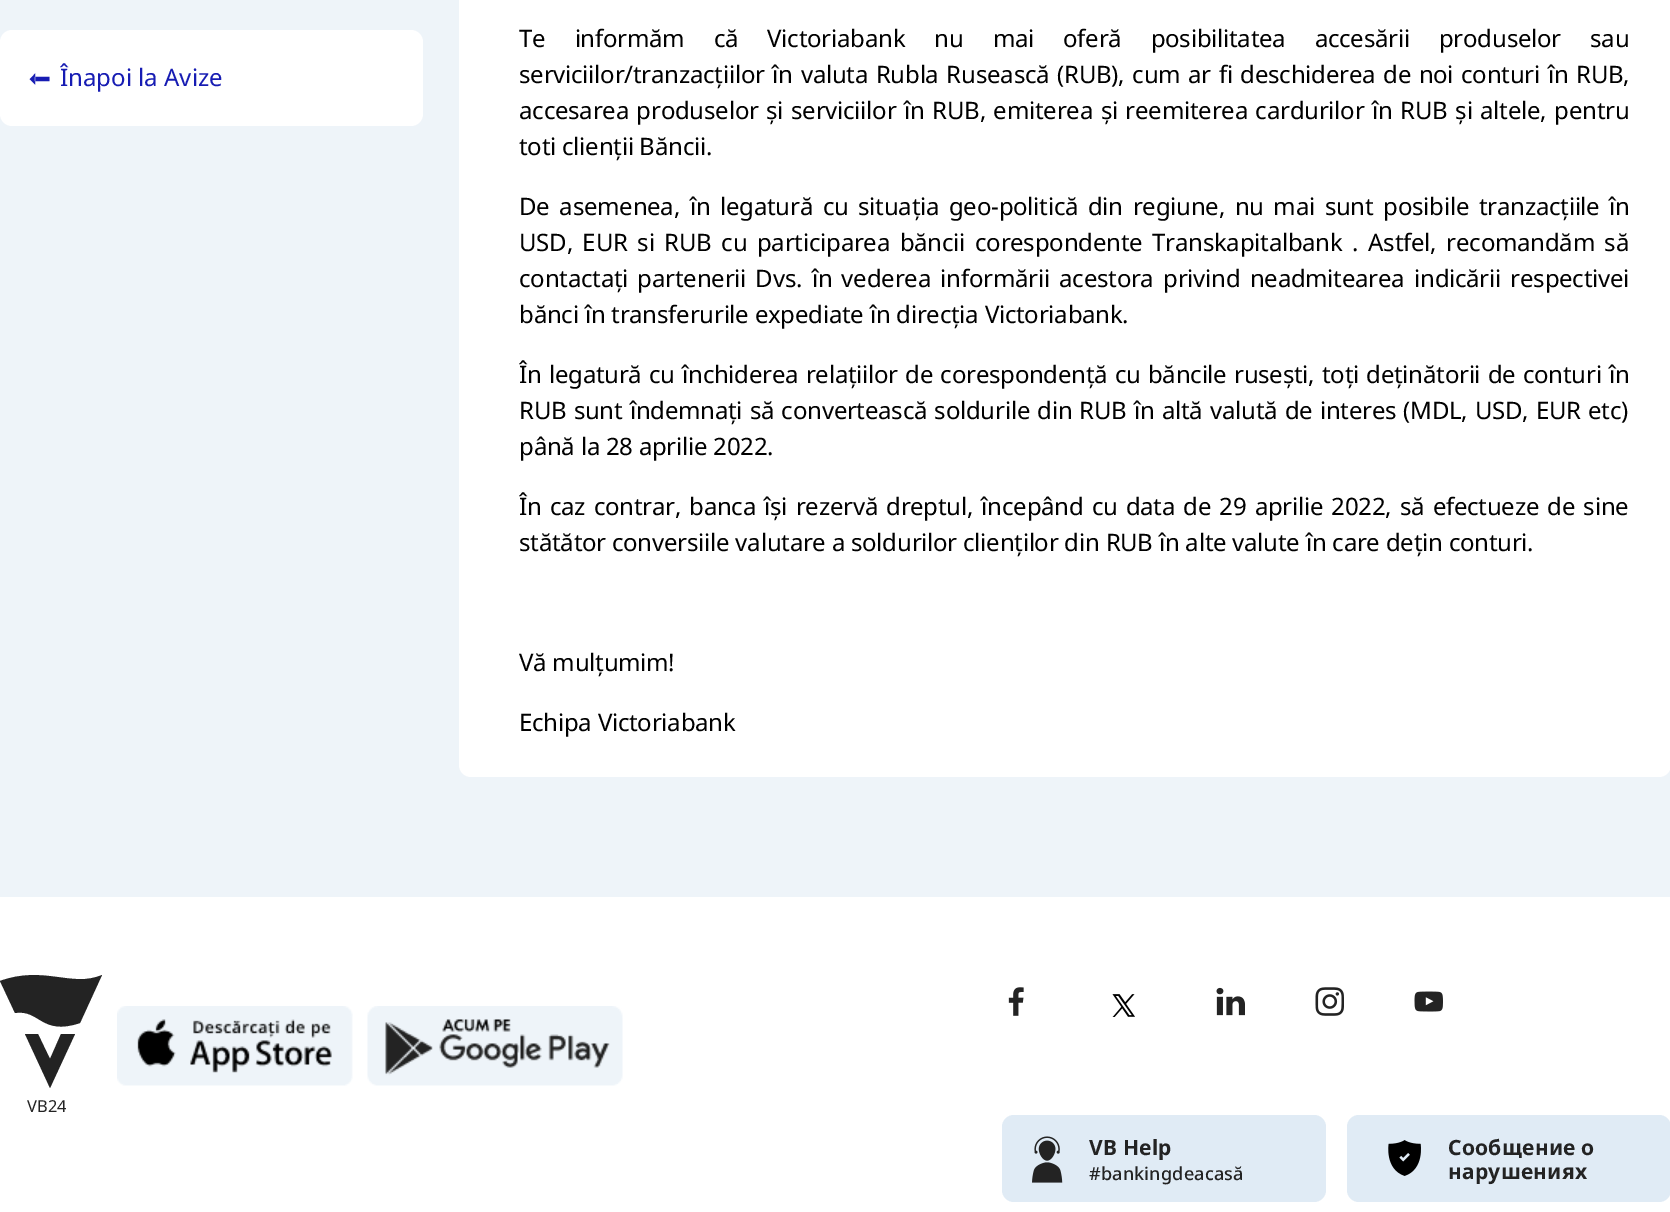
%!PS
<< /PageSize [1670 1212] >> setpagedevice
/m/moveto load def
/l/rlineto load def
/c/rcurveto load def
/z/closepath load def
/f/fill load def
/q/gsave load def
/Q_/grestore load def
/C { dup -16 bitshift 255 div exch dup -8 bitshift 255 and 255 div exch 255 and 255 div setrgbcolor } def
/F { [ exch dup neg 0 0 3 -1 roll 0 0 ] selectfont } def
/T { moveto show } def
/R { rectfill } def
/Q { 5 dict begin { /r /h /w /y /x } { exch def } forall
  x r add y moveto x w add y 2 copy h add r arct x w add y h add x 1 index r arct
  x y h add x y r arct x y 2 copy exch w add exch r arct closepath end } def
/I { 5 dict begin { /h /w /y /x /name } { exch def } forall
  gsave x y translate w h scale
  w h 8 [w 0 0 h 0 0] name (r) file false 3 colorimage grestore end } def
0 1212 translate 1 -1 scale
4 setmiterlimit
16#EEF4F9 C
0 0 1670 1212 R
16#FFFFFF C
0 30 423 96 12 Q f
/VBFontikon-Regular 39 F
16#171CB3 C
q 59 62 translate 180 rotate 0 0 m (8) show Q_
/NotoSans-Regular 24 F
(Înapoi la Avize) 60 86 T
16#FFFFFF C
459 -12 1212 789 12 Q f
16#000000 C
519 47 m 23.1 0 32 -.24 0 (Te informăm că Victoriabank nu mai oferă posibilitatea accesării produselor sau) awidthshow
519 83 m 1.75 0 32 -.24 0 (serviciilor/tranzacțiilor în valuta Rubla Rusească \(RUB\), cum ar fi deschiderea de noi conturi în RUB,) awidthshow
519 119 m 1.7 0 32 -.24 0 (accesarea produselor și serviciilor în RUB, emiterea și reemiterea cardurilor în RUB și altele, pentru) awidthshow
519 155 m -.24 0 (toti clienții Băncii.) ashow
519 215 m 3.75 0 32 -.24 0 (De asemenea, în legatură cu situația geo-politică din regiune, nu mai sunt posibile tranzacțiile în) awidthshow
519 251 m 3.75 0 32 -.24 0 (USD, EUR si RUB cu participarea băncii corespondente Transkapitalbank . Astfel, recomandăm să) awidthshow
519 287 m 3.4 0 32 -.24 0 (contactați partenerii Dvs. în vederea informării acestora privind neadmitearea indicării respectivei) awidthshow
519 323 m -.24 0 (bănci în transferurile expediate în direcția Victoriabank.) ashow
519 383 m 1.25 0 32 -.24 0 (În legatură cu închiderea relațiilor de corespondență cu băncile rusești, toți deținătorii de conturi în) awidthshow
519 419 m 1.25 0 32 -.24 0 (RUB sunt îndemnați să convertească soldurile din RUB în altă valută de interes \(MDL, USD, EUR etc\)) awidthshow
519 455 m -.24 0 (până la 28 aprilie 2022.) ashow
519 515 m 2.25 0 32 -.24 0 (În caz contrar, banca își rezervă dreptul, începând cu data de 29 aprilie 2022, să efectueze de sine) awidthshow
519 551 m -.24 0 (stătător conversiile valutare a soldurilor clienților din RUB în alte valute în care dețin conturi.) ashow
519 671 m -.24 0 (Vă mulțumim!) ashow
519 731 m -.24 0 (Echipa Victoriabank) ashow
16#FFFFFF C
0 897 1670 315 R
(1.rgb) 117 1006 236 80 I
(2.rgb) 367 1006 256 80 I
/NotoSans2-Regular 16.5 F
16#232323 C
(VB24) 27 1112 T
102 975 m -22 48 l -39 13 -40 -14 -65 -10 c -15 -32 l 44 -16 72 7 102 -6 c f
75 1034 m -25 54 l -25 -54 l 13 0 l 12 25 l 11 -25 l z f
(3.rgb) 1008 987 16 29 I
(4.rgb) 1112 994 23 23 I
(5.rgb) 1216 987 29 29 I
(6.rgb) 1315 987 29 29 I
(7.rgb) 1414 991 29 21 I
16#E0EBF5 C
1002 1115 324 87 12 Q f
(8.rgb) 1032 1136 31 47 I
/NotoSans-Bold 21 F
16#232323 C
1089 1155 m .25 0 (VB Help) ashow
/NotoSans-Medium 18 F
1089 1180 m .2 0 (#bankingdeacasă) ashow
16#E0EBF5 C
1347 1115 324 87 12 Q f
(9.rgb) 1388 1140 33 36 I
/NotoSans-Bold 21 F
16#232323 C
1448 1155 m .25 0 (Сообщение о) ashow
1448 1179 m .25 0 (нарушениях) ashow
showpage
